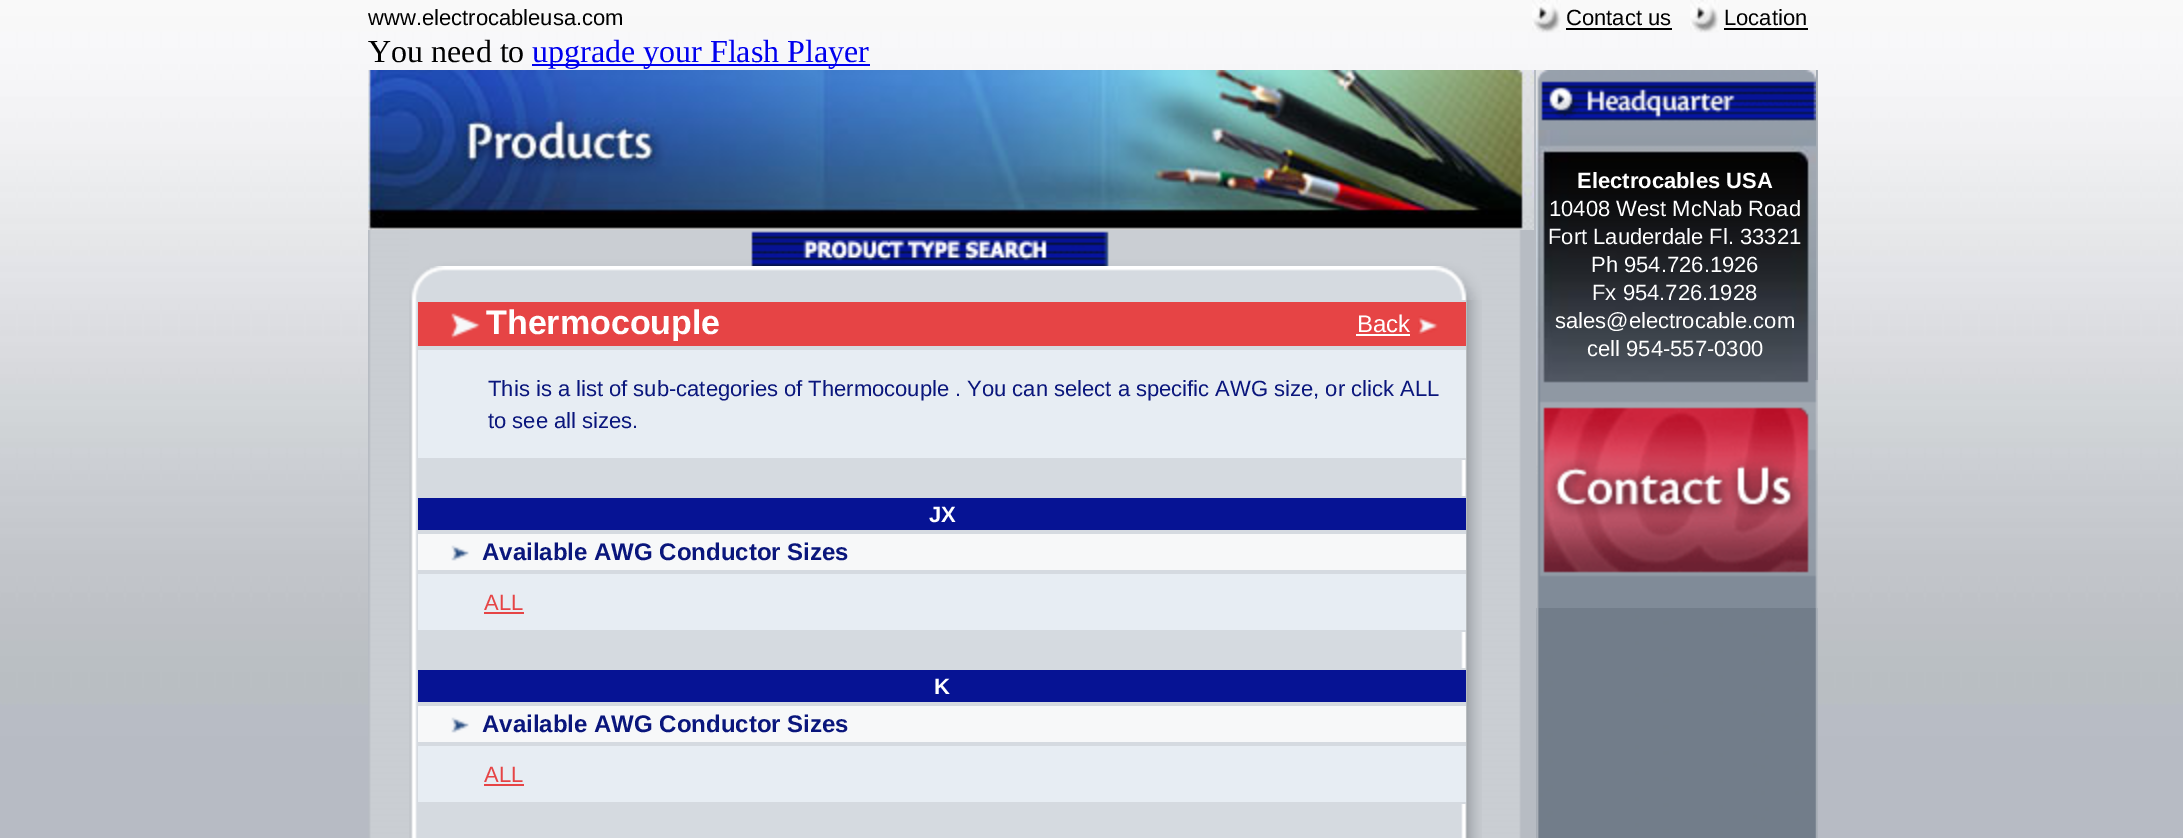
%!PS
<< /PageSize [2183 838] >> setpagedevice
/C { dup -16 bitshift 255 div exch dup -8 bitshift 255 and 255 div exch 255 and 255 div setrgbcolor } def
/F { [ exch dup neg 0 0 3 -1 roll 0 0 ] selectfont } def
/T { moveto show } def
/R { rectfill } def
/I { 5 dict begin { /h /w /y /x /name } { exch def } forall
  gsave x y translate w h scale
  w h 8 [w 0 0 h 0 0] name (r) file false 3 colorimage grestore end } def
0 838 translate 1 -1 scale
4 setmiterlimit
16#FFFFFF C
0 0 2183 838 R
(1.rgb) 0 0 2183 838 I
/LiberationSans-Regular 22 F
16#000000 C
(www.electrocableusa.com) 368 25 T
(2.rgb) 1532 0 29 33 I
(Contact us) 1566 25 T
1566 28 106 2 R
(2.rgb) 1690 0 29 33 I
(Location) 1724 25 T
1724 28 84 2 R
/LiberationSerif-Regular 32 F
(You need to) 368 62 T
16#0000EE C
532 64 338 2 R
(upgrade your Flash Player) 532 62 T
(3.rgb) 1536 70 282 768 I
(4.rgb) 1536 70 280 60 I
(5.rgb) 1536 130 280 250 I
/LiberationSans-Bold 22 F
16#FFFFFF C
(Electrocables USA) 1577 188 T
/LiberationSans-Regular 22 F
(10408 West McNab Road) 1549 216 T
(Fort Lauderdale Fl. 33321) 1548 244 T
(Ph 954.726.1926) 1591 272 T
(Fx 954.726.1928) 1592 300 T
(sales@electrocable.com) 1555 328 T
(cell 954-557-0300) 1587 356 T
(6.rgb) 1536 380 282 228 I
(7.rgb) 368 70 1168 768 I
(8.rgb) 368 70 1166 160 I
(9.rgb) 409 300 1073 538 I
(10.rgb) 409 230 1073 36 I
(11.rgb) 409 266 1073 34 I
16#E64445 C
418 302 1048 44 R
16#D5DAE0 C
1461 300 5 2 R
1461 346 5 4 R
(12.rgb) 451 313 29 26 I
/LiberationSans-Bold 34 F
16#FFFFFF C
(Thermocouple) 486 334 T
/LiberationSans-Regular 24 F
(Back) 1357 332 T
1356 334 54 2 R
(13.rgb) 1418 316 20 18 I
16#E7EDF3 C
418 350 1048 108 R
16#D5DAE0 C
1461 458 5 2 R
/LiberationSans-Regular 22 F
16#0A167C C
(This is a list of sub-categories of Thermocouple . You can select a specific AWG size, or click ALL) 488 396 T
(to see all sizes.) 488 428 T
16#061394 C
418 498 1048 32 R
16#D5DAE0 C
1461 496 5 2 R
1461 530 5 4 R
/LiberationSans-Bold 22 F
16#FFFFFF C
(JX) 929 522 T
16#F7F8F9 C
418 534 1048 36 R
16#D5DAE0 C
1461 570 5 4 R
(14.rgb) 451 545 18 16 I
/LiberationSans-Bold 24 F
16#0A167C C
(Available AWG Conductor Sizes) 482 560 T
16#E7EDF3 C
418 574 1048 56 R
16#D5DAE0 C
1461 630 5 2 R
/LiberationSans-Regular 22 F
16#E64445 C
(ALL) 484 610 T
484 612 40 2 R
16#061394 C
418 670 1048 32 R
16#D5DAE0 C
1461 668 5 2 R
1461 702 5 4 R
/LiberationSans-Bold 22 F
16#FFFFFF C
(K) 934 694 T
16#F7F8F9 C
418 706 1048 36 R
16#D5DAE0 C
1461 742 5 4 R
(14.rgb) 451 717 18 16 I
/LiberationSans-Bold 24 F
16#0A167C C
(Available AWG Conductor Sizes) 482 732 T
16#E7EDF3 C
418 746 1048 56 R
16#D5DAE0 C
1461 802 5 2 R
/LiberationSans-Regular 22 F
16#E64445 C
(ALL) 484 782 T
484 784 40 2 R
showpage
